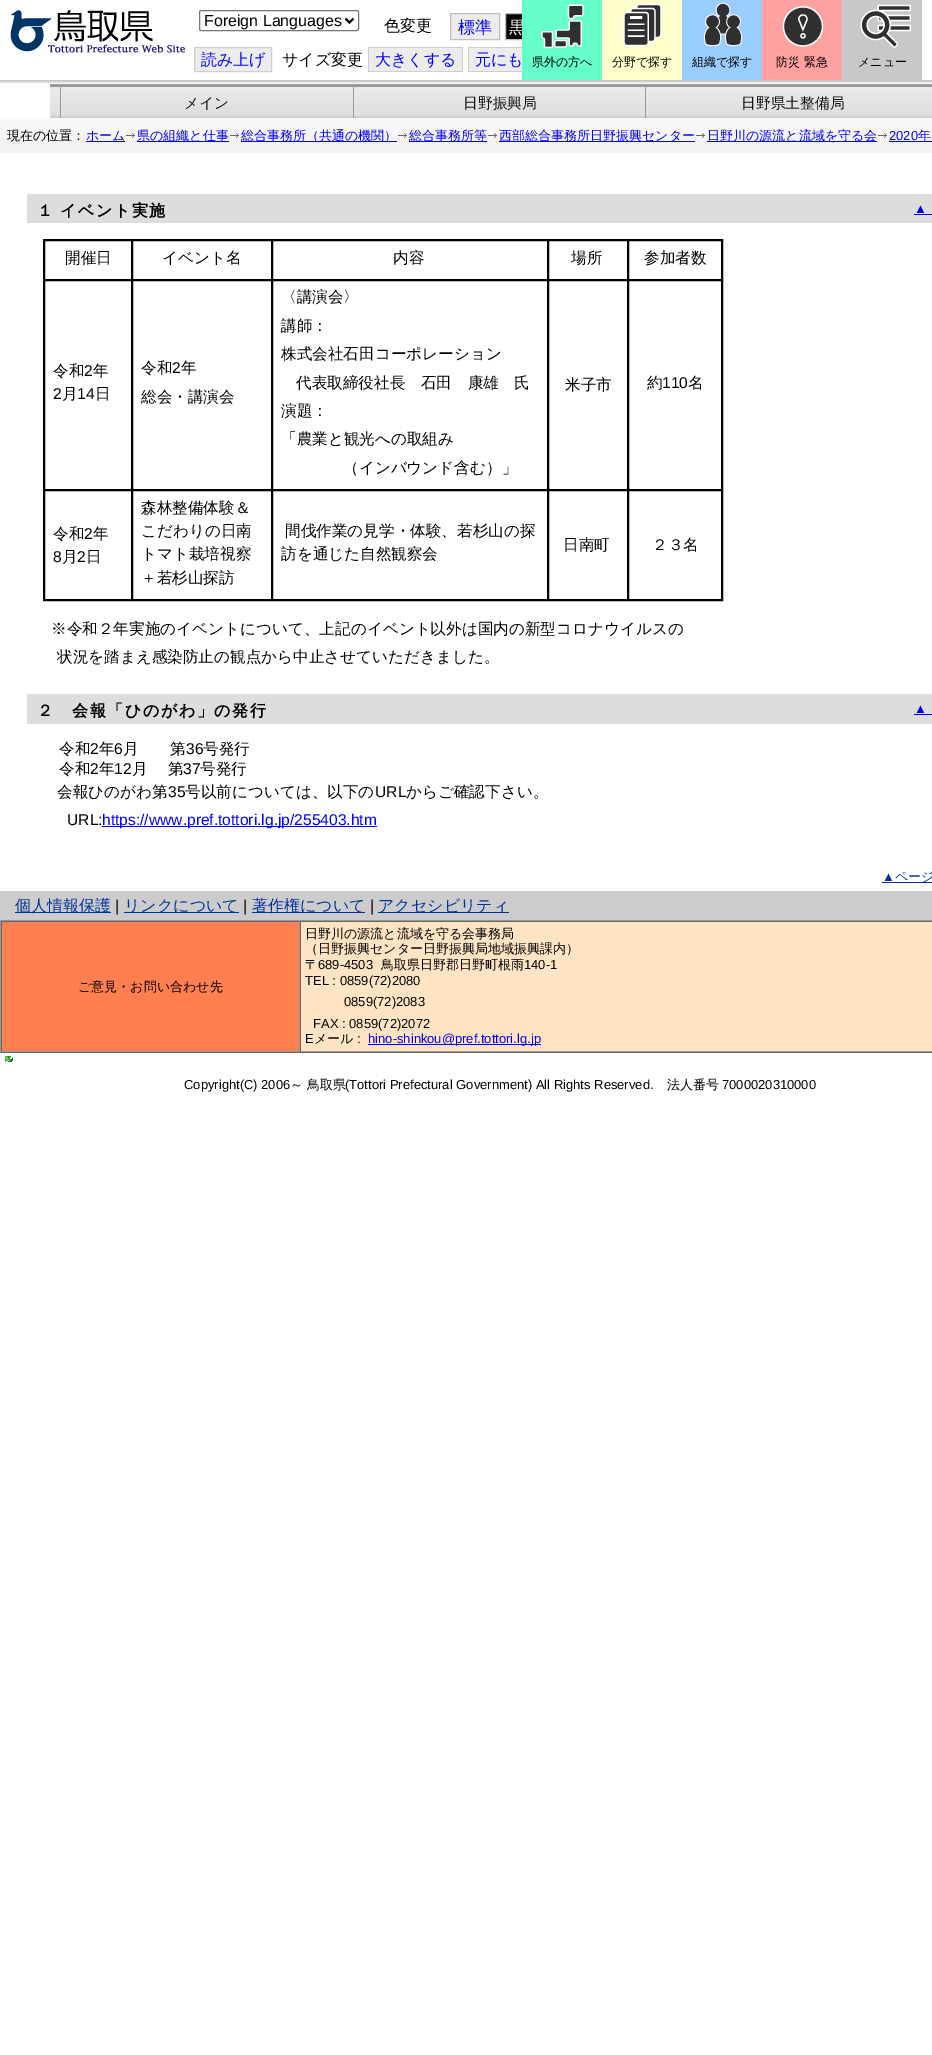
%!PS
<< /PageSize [932 2055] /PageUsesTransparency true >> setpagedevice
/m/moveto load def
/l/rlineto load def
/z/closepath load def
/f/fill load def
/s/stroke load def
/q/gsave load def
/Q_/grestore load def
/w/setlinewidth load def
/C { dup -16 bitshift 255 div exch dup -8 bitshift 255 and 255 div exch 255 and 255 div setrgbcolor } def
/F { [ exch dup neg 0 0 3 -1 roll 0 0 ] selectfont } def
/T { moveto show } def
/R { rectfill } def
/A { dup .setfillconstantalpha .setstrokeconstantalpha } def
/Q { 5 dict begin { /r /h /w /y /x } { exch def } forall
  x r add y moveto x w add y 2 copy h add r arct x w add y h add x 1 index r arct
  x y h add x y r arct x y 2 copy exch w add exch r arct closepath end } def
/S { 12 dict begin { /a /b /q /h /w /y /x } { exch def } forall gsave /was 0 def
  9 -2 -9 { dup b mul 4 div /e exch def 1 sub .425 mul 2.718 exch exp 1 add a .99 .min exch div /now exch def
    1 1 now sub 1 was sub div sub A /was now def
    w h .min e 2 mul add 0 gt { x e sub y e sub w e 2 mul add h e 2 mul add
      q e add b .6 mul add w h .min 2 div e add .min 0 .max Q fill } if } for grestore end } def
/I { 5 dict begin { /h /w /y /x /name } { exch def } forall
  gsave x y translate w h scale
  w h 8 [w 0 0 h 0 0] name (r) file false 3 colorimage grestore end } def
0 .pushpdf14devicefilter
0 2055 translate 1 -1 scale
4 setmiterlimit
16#FFFFFF C
0 0 932 2055 R
(7.rgb) 50 87 882 31 I
16#999999 C
50 84 882 3 R
60 87 1 31 R
353 87 1 31 R
645 87 1 31 R
q
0 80 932 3 rectclip
16#000000 C
-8 1 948 80 0 2.5 .1 S
-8 1 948 80 0 2.5 .1 S
-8 1 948 80 0 2.5 .1 S
-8 1 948 80 0 2.5 .1 S
Q_
(1.rgb) 10 10 175 43 I
16#767676 C
199.5 10.5 159 20 1.5 Q s
16#000000 C
2 w
345.5 18.5 m 4 4 l 4 -4 l s
/LiberationSans-Regular 16 F
(Foreign Languages) 204 26 T
/WenQuanYiZenHei-Medium 16 F
(色変更) 384 31 T
16#ECECEC C
450.5 13.5 m 49 0 l 0 26 l -49 0 l z q f Q_
16#BFBFBF C
1 w
s
/WenQuanYiZenHei-Medium 17 F
16#0000FF C
(標準) 458 33 T
16#000000 C
506 14 16 25 R
16#BFBFBF C
505.5 13.5 25 26 rectstroke
16#FFFFFF C
(黒) 509 33 T
16#ECECEC C
194.5 47.5 m 77 0 l 0 24 l -77 0 l z q f Q_
16#CECECE C
s
/WenQuanYiZenHei-Medium 16 F
16#0000FF C
(読み上げ) 201 65 T
16#000000 C
(サイズ変更) 282 65 T
16#ECECEC C
369 48 93 23 R
16#0000FF C
(大きくする) 375 65 T
16#CECECE C
368 47 95 1 R
368 71 23 1 R
368 47 1 25 R
462 47 1 25 R
391 71 72 1 R
16#ECECEC C
469 48 53 23 R
16#0000FF C
(元にも) 475 65 T
16#CECECE C
468 47 54 1 R
468 71 54 1 R
468 47 1 25 R
16#66FFCC C
522 0 80 80 R
(2.rgb) 541 4 43 45 I
/WenQuanYiZenHei-Medium 12 F
16#000000 C
(県外の方へ) 532 66 T
16#FFFFCC C
602 0 80 80 R
(3.rgb) 623 3 39 44 I
16#000000 C
(分野で探す) 612 66 T
16#99CCFF C
682 0 80 80 R
(4.rgb) 704 2 39 44 I
16#000000 C
(組織で探す) 692 66 T
16#FFA1A1 C
762 0 80 80 R
(5.rgb) 782 6 42 41 I
16#000000 C
(防災 緊急) 776 66 T
16#C8C8CB C
842 0 80 80 R
(6.rgb) 860 4 51 44 I
16#000000 C
(メニュー) 858 66 T
/WenQuanYiZenHei-Medium 14.75 F
16#111111 C
(メイン) 184 108 T
(日野振興局) 463 108 T
(日野県土整備局) 741 108 T
q 0 118 m 932 0 l 0 35 l -932 0 l z clip newpath
<< /ShadingType 2 /ColorSpace /DeviceRGB /Coords [500 118 500 153] /Extend [true true] /Function << /FunctionType 2 /Domain [0 1] /C0 [.98 .98 .98] /C1 [.945 .945 .945] /N 1 >> >> shfill Q_
/WenQuanYiZenHei-Medium 13 F
16#000000 C
(現在の位置：) 7 140 T
16#0000FF C
86 141 39 1 R
(ホーム) 86 140 T
(8.rgb) 126 133 9 5 I
137 141 92 1 R
(県の組織と仕事) 137 140 T
(8.rgb) 230 133 9 5 I
241 141 156 1 R
(総合事務所（共通の機関）) 241 140 T
(8.rgb) 398 133 9 5 I
409 141 78 1 R
(総合事務所等) 409 140 T
(8.rgb) 488 133 9 5 I
499 141 196 1 R
(西部総合事務所日野振興センター) 499 140 T
(8.rgb) 696 133 9 5 I
707 141 170 1 R
(日野川の源流と流域を守る会) 707 140 T
(8.rgb) 878 133 9 5 I
/LiberationSans-Regular 13 F
(2020) 889 140 T
889 141 43 1 R
/WenQuanYiZenHei-Medium 13 F
(年) 918 140 T
16#DDDDDD C
27 194 905 29 R
/WenQuanYiZenHei-Bold 16 F
16#000000 C
37 216 m 1.6 0 (１) ashow
60 216 m 1.6 0 (イベント実施) ashow
/LiberationSans-Regular 13 F
16#0000FF C
(▲) 914 213 T
914 214 18 1 R
16#000000 C
43.5 239.5 679 361 rectstroke
44.5 240.5 87 39 rectstroke
/WenQuanYiZenHei-Medium 15.6 F
(開催日) 65 263 T
132.5 240.5 139 39 rectstroke
(イベント名) 162 263 T
272.5 240.5 275 39 rectstroke
(内容) 393 263 T
548.5 240.5 79 39 rectstroke
(場所) 571 263 T
628.5 240.5 93 39 rectstroke
(参加者数) 644 263 T
44.5 280.5 87 209 rectstroke
(令和) 53 376 T
/LiberationSans-Regular 15.6 F
(2) 84 376 T
/WenQuanYiZenHei-Medium 15.6 F
(年) 93 376 T
/LiberationSans-Regular 15.6 F
(2) 53 399 T
/WenQuanYiZenHei-Medium 15.6 F
(月) 62 399 T
/LiberationSans-Regular 15.6 F
(14) 77 399 T
/WenQuanYiZenHei-Medium 15.6 F
(日) 95 399 T
132.5 280.5 139 209 rectstroke
(令和) 141 373 T
/LiberationSans-Regular 15.6 F
(2) 172 373 T
/WenQuanYiZenHei-Medium 15.6 F
(年) 181 373 T
(総会・講演会) 141 402 T
272.5 280.5 275 209 rectstroke
(〈講演会〉) 281 302 T
(講師：) 281 331 T
(株式会社石田コーポレーション) 281 359 T
(代表取締役社長　石田　康雄　氏) 296 388 T
(演題：) 281 416 T
(「農業と観光への取組み) 281 444 T
(（インバウンド含む）」) 343 473 T
548.5 280.5 79 209 rectstroke
(米子市) 565 390 T
628.5 280.5 93 209 rectstroke
(約) 647 388 T
/LiberationSans-Regular 15.6 F
(110) 662 388 T
/WenQuanYiZenHei-Medium 15.6 F
(名) 688 388 T
44.5 490.5 87 109 rectstroke
(令和) 53 539 T
/LiberationSans-Regular 15.6 F
(2) 84 539 T
/WenQuanYiZenHei-Medium 15.6 F
(年) 93 539 T
/LiberationSans-Regular 15.6 F
(8) 53 562 T
/WenQuanYiZenHei-Medium 15.6 F
(月) 62 562 T
/LiberationSans-Regular 15.6 F
(2) 77 562 T
/WenQuanYiZenHei-Medium 15.6 F
(日) 86 562 T
132.5 490.5 139 109 rectstroke
(森林整備体験＆) 141 513 T
(こだわりの日南) 141 536 T
(トマト栽培視察) 141 559 T
(＋若杉山探訪) 141 583 T
272.5 490.5 275 109 rectstroke
(間伐作業の見学・体験、若杉山の探) 285 536 T
(訪を通じた自然観察会) 281 559 T
548.5 490.5 79 109 rectstroke
(日南町) 563 550 T
628.5 490.5 93 109 rectstroke
(２３名) 652 550 T
(※令和２年実施のイベントについて、上記のイベント以外は国内の新型コロナウイルスの) 51 634 T
(状況を踏まえ感染防止の観点から中止させていただきました。) 57 662 T
16#DDDDDD C
27 694 905 30 R
/WenQuanYiZenHei-Bold 16 F
16#000000 C
37 716 m 1.6 0 (２　会報「ひのがわ」の発行) ashow
/LiberationSans-Regular 13 F
16#0000FF C
(▲) 914 713 T
914 714 18 1 R
/WenQuanYiZenHei-Medium 15.6 F
16#000000 C
(令和) 59 754 T
/LiberationSans-Regular 15.6 F
(2) 90 754 T
/WenQuanYiZenHei-Medium 15.6 F
(年) 99 754 T
/LiberationSans-Regular 15.6 F
(6) 114 754 T
/WenQuanYiZenHei-Medium 15.6 F
(月　　第) 123 754 T
/LiberationSans-Regular 15.6 F
(36) 186 754 T
/WenQuanYiZenHei-Medium 15.6 F
(号発行) 203 754 T
(令和) 59 774 T
/LiberationSans-Regular 15.6 F
(2) 90 774 T
/WenQuanYiZenHei-Medium 15.6 F
(年) 99 774 T
/LiberationSans-Regular 15.6 F
(12) 114 774 T
/WenQuanYiZenHei-Medium 15.6 F
(月　 第) 132 774 T
/LiberationSans-Regular 15.6 F
(37) 183 774 T
/WenQuanYiZenHei-Medium 15.6 F
(号発行) 200 774 T
(会報ひのがわ第) 57 797 T
/LiberationSans-Regular 15.6 F
(35) 168 797 T
/WenQuanYiZenHei-Medium 15.6 F
(号以前については、以下の) 185 797 T
/LiberationSans-Regular 15.6 F
(URL) 375 797 T
/WenQuanYiZenHei-Medium 15.6 F
(からご確認下さい。) 406 797 T
/LiberationSans-Regular 15.6 F
(URL:) 67 825 T
16#0000FF C
102 826 275 1 R
(https://www.pref.tottori.lg.jp/255403.htm) 102 825 T
/LiberationSans-Regular 13 F
16#003399 C
(▲) 882 881 T
882 882 50 1 R
/WenQuanYiZenHei-Medium 13 F
(ページ) 895 881 T
16#CCCCCC C
0 891 932 29 R
16#003399 C
15 912 96 1 R
/WenQuanYiZenHei-Medium 16 F
(個人情報保護) 15 911 T
/LiberationSans-Regular 16 F
16#000000 C
(|) 115 911 T
16#003399 C
124 912 115 1 R
/WenQuanYiZenHei-Medium 16 F
(リンクについて) 124 911 T
/LiberationSans-Regular 16 F
16#000000 C
(|) 243 911 T
16#003399 C
252 912 113 1 R
/WenQuanYiZenHei-Medium 16 F
(著作権について) 252 911 T
/LiberationSans-Regular 16 F
16#000000 C
(|) 370 911 T
16#003399 C
378 912 131 1 R
/WenQuanYiZenHei-Medium 16 F
(アクセシビリティ) 378 911 T
16#999999 C
0 920 932 1 R
16#666666 C
0 1052 932 1 R
16#999999 C
0 920 1 133 R
16#FF7F50 C
2 922 297 129 R
16#666666 C
1 921 931 1 R
16#999999 C
299 921 1 131 R
1 1051 931 1 R
16#666666 C
1 921 1 131 R
/WenQuanYiZenHei-Medium 13 F
16#000000 C
(ご意見・お問い合わせ先) 78 991 T
16#FFE4C4 C
301 922 631 129 R
16#666666 C
300 921 1 131 R
16#000000 C
(日野川の源流と流域を守る会事務局) 305 938 T
(（日野振興センター日野振興局地域振興課内）) 305 953 T
(〒) 305 969 T
/LiberationSans-Regular 13 F
(689-4503) 318 969 T
/WenQuanYiZenHei-Medium 13 F
(鳥取県日野郡日野町根雨) 381 969 T
/LiberationSans-Regular 13 F
(140-1) 524 969 T
(TEL : 0859\(72\)2080) 305 985 T
(0859\(72\)2083) 344 1006 T
(FAX : 0859\(72\)2072) 313 1028 T
(E) 305 1043 T
/WenQuanYiZenHei-Medium 13 F
(メール) 314 1043 T
/LiberationSans-Regular 13 F
(:) 357 1043 T
16#0000FF C
368 1044 173 1 R
(hino-shinkou@pref.tottori.lg.jp) 368 1043 T
(9.rgb) 5 1056 8 6 I
16#000000 C
(Copyright\(C\) 2006) 184 1089 T
/WenQuanYiZenHei-Medium 13 F
(～ 鳥取県) 290 1089 T
/LiberationSans-Regular 13 F
(\(Tottori Prefectural Government\) All Rights Reserved.) 345 1089 T
/WenQuanYiZenHei-Medium 13 F
(法人番号) 667 1089 T
/LiberationSans-Regular 13 F
(7000020310000) 722 1089 T
.poppdf14devicefilter showpage
